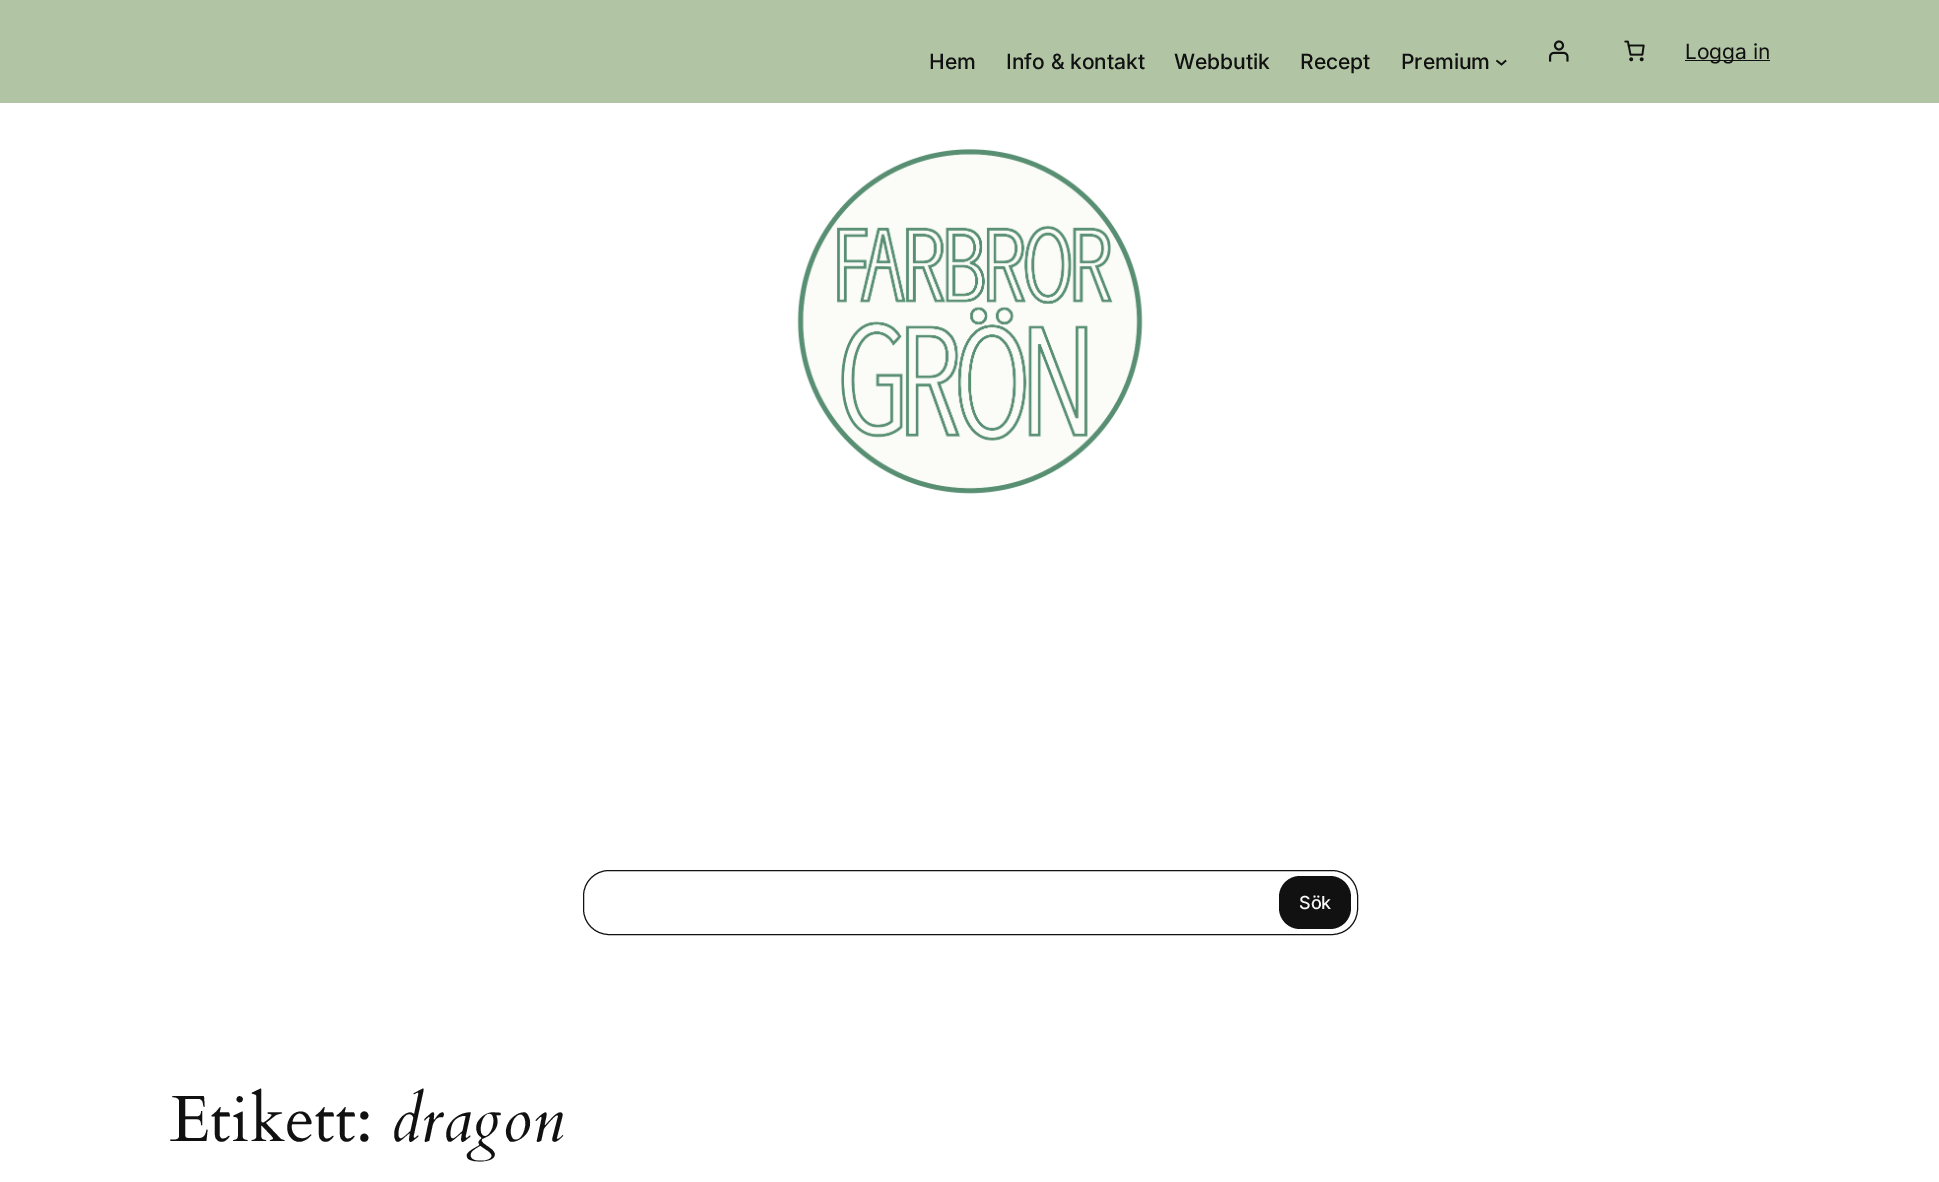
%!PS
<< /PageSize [1939 1182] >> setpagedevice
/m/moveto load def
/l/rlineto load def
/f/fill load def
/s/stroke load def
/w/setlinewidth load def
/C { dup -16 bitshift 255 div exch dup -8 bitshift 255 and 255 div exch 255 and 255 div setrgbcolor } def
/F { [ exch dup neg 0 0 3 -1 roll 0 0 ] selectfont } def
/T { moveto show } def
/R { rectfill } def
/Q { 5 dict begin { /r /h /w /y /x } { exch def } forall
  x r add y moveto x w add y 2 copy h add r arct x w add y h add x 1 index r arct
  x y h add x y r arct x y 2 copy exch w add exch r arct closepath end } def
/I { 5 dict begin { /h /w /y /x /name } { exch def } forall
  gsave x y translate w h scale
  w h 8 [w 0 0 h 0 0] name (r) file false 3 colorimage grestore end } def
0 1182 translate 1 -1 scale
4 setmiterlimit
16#FFFFFF C
0 0 1939 1182 R
16#B1C5A4 C
0 0 1939 103 R
/Inter-Medium 21 F
16#111111 C
(Hem) 929 69 T
(Info & kontakt) 1006 69 T
(Webbutik) 1174 69 T
(Recept) 1300 69 T
(Premium) 1401 69 T
1.6 w
1496.5 60.5 m 5 4 l 4.5 -4 l s
(1.rgb) 1549 40 20 22 I
(2.rgb) 1624 40 21 22 I
1685 60 85 1 R
/Inter-Regular 21 F
(Logga in) 1685 59 T
(3.rgb) 797 149 346 345 I
1 w
583.5 870.5 774 64 25.5 Q s
1279 876 72 53 21 Q f
/Inter-Medium 18 F
16#F9F9F9 C
(Sök) 1299 909 T
/Cardo-Regular 65.5 F
16#111111 C
(Etikett:) 170 1141 T
/Cardo-Italic 65.5 F
(dragon) 390 1141 T
showpage
